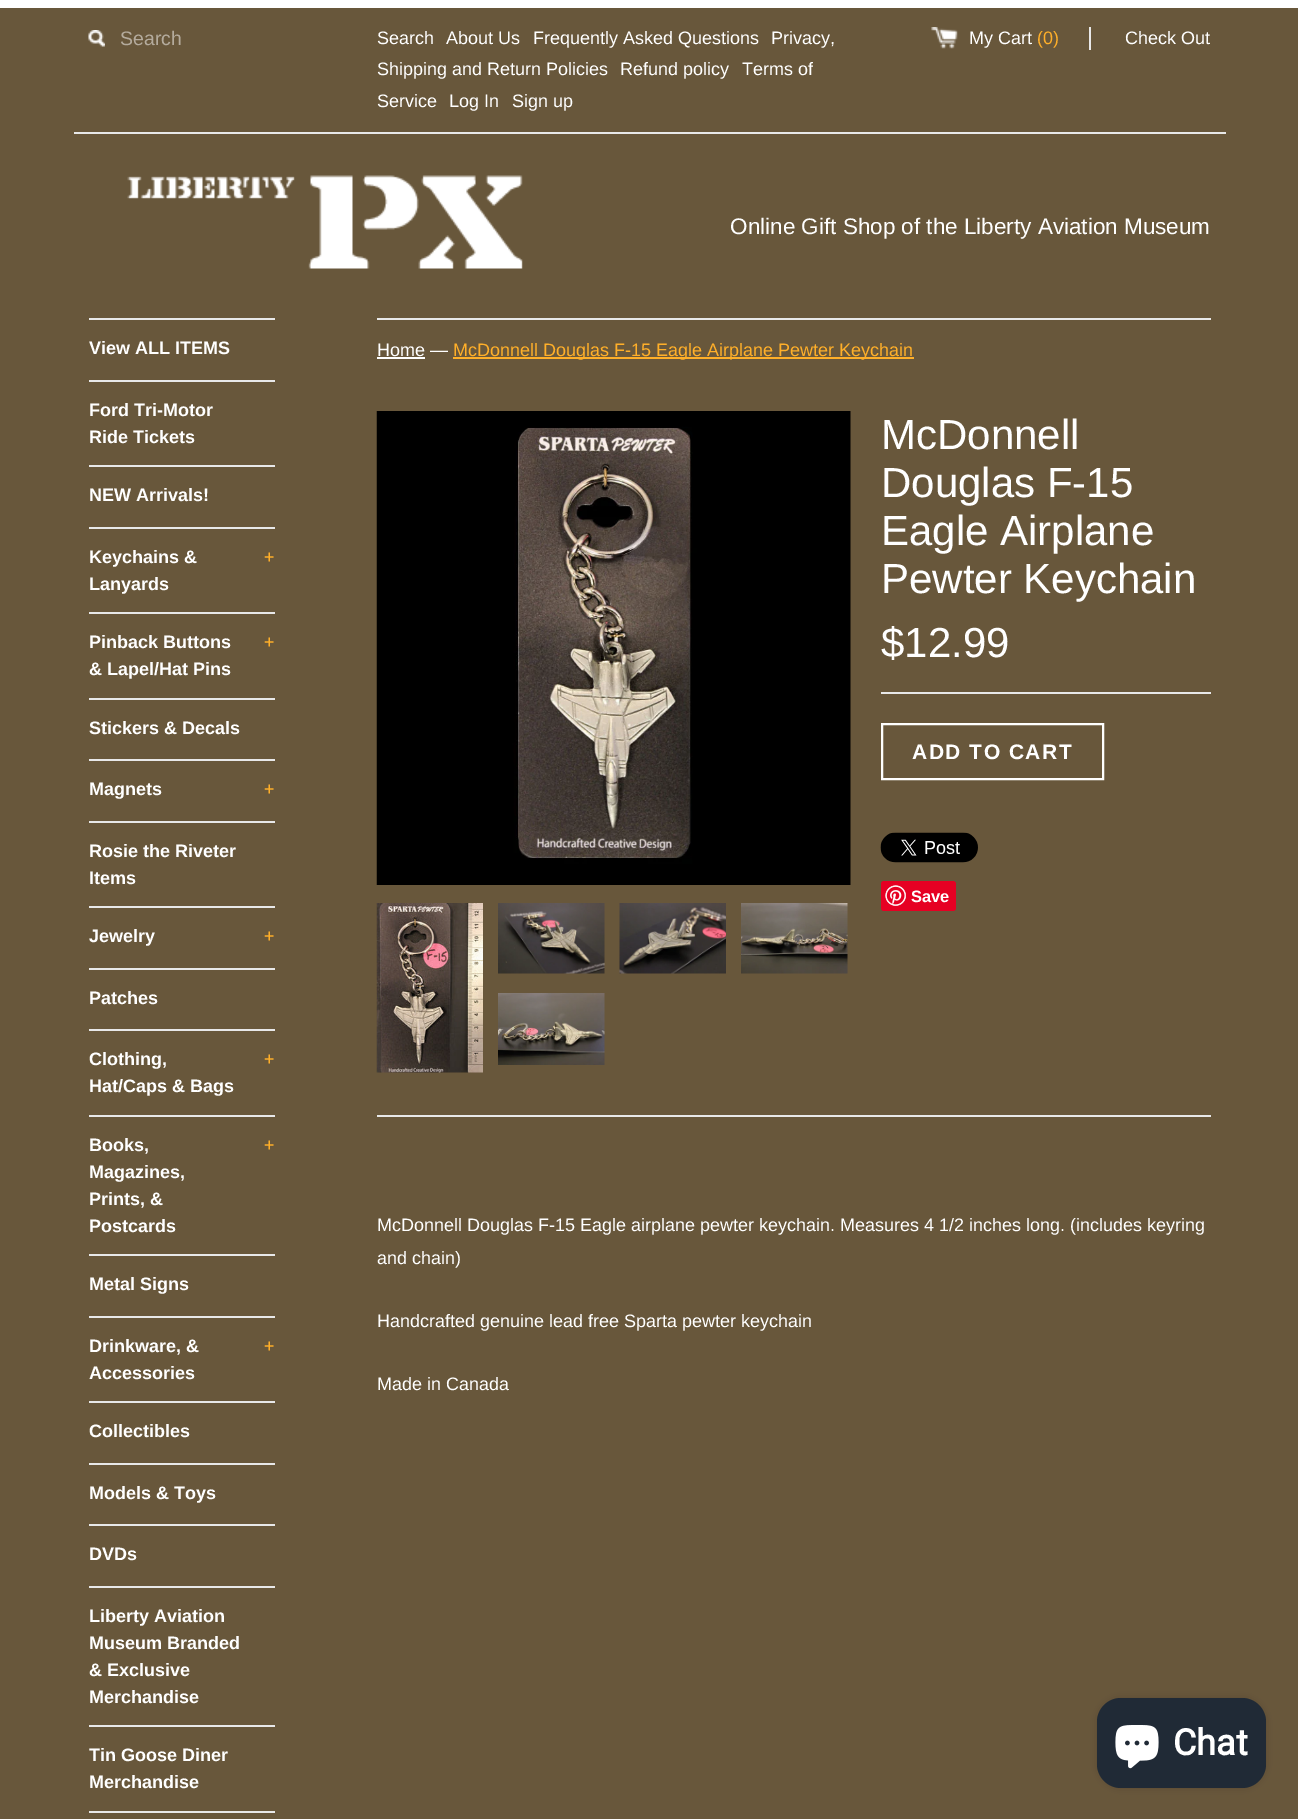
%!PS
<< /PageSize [1298 1819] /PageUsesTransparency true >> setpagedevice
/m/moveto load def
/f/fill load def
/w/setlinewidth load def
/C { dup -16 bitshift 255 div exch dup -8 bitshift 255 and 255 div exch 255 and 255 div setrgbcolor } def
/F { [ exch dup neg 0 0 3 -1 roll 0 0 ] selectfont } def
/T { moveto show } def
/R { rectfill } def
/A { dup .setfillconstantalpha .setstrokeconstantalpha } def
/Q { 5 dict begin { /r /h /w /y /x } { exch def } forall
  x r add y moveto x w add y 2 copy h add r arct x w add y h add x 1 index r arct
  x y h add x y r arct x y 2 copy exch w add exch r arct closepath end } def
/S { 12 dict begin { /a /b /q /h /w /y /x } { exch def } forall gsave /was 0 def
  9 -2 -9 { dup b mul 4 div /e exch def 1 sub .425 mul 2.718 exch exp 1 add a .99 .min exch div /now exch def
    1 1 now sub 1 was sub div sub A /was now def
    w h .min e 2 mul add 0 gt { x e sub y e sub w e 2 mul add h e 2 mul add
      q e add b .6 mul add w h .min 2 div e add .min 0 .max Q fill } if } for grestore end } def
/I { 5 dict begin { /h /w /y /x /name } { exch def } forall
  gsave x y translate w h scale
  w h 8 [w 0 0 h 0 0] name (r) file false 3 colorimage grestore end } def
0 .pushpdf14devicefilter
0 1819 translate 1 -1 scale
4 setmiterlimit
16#68573B C
0 0 1298 1819 R
16#FFFFFF C
0 0 1298 8 R
16#E8E8E8 C
74 132 1152 2 R
(1.rgb) 88 30 17 17 I
/LiberationSans-Regular 19.5 F
16#B4AB9D C
(Search) 120 45 T
/LiberationSans-Regular 18 F
16#FFFFFF C
(Search) 377 44 T
(About Us) 446 44 T
(Frequently Asked Questions) 533 44 T
(Privacy,) 771 44 T
(Shipping and Return Policies) 377 75 T
(Refund policy) 620 75 T
(Terms of) 742 75 T
(Service) 377 107 T
(Log In) 449 107 T
(Sign up) 512 107 T
(2.rgb) 931 27 27 22 I
(My Cart) 969 44 T
16#FFAF29 C
(\(0\)) 1037 44 T
16#E8E8E8 C
1089 27 2 23 R
16#FFFFFF C
(Check Out) 1125 44 T
(3.rgb) 127 175 396 94 I
/LiberationSans-Regular 22.5 F
(Online Gift Shop of the Liberty Aviation Museum) 730 234 T
16#E8E8E8 C
89 318 186 2 R
/LiberationSans-Bold 18 F
16#FFFFFF C
(View ALL ITEMS) 89 354 T
16#E8E8E8 C
89 380 186 2 R
16#FFFFFF C
(Ford Tri-Motor) 89 416 T
(Ride Tickets) 89 443 T
16#E8E8E8 C
89 465 186 2 R
16#FFFFFF C
(NEW Arrivals!) 89 501 T
16#E8E8E8 C
89 527 186 2 R
16#FFFFFF C
(Keychains &) 89 563 T
/LiberationSans-Regular 18 F
16#FFAF29 C
(+) 264 563 T
/LiberationSans-Bold 18 F
16#FFFFFF C
(Lanyards) 89 590 T
16#E8E8E8 C
89 612 186 2 R
16#FFFFFF C
(Pinback Buttons) 89 648 T
/LiberationSans-Regular 18 F
16#FFAF29 C
(+) 264 648 T
/LiberationSans-Bold 18 F
16#FFFFFF C
(& Lapel/Hat Pins) 89 675 T
16#E8E8E8 C
89 698 186 2 R
16#FFFFFF C
(Stickers & Decals) 89 734 T
16#E8E8E8 C
89 759 186 2 R
16#FFFFFF C
(Magnets) 89 795 T
/LiberationSans-Regular 18 F
16#FFAF29 C
(+) 264 795 T
16#E8E8E8 C
89 821 186 2 R
/LiberationSans-Bold 18 F
16#FFFFFF C
(Rosie the Riveter) 89 857 T
(Items) 89 884 T
16#E8E8E8 C
89 906 186 2 R
16#FFFFFF C
(Jewelry) 89 942 T
/LiberationSans-Regular 18 F
16#FFAF29 C
(+) 264 942 T
16#E8E8E8 C
89 968 186 2 R
/LiberationSans-Bold 18 F
16#FFFFFF C
(Patches) 89 1004 T
16#E8E8E8 C
89 1029 186 2 R
16#FFFFFF C
(Clothing,) 89 1065 T
/LiberationSans-Regular 18 F
16#FFAF29 C
(+) 264 1065 T
/LiberationSans-Bold 18 F
16#FFFFFF C
(Hat/Caps & Bags) 89 1092 T
16#E8E8E8 C
89 1115 186 2 R
16#FFFFFF C
(Books,) 89 1151 T
/LiberationSans-Regular 18 F
16#FFAF29 C
(+) 264 1151 T
/LiberationSans-Bold 18 F
16#FFFFFF C
(Magazines,) 89 1178 T
(Prints, &) 89 1205 T
(Postcards) 89 1232 T
16#E8E8E8 C
89 1254 186 2 R
16#FFFFFF C
(Metal Signs) 89 1290 T
16#E8E8E8 C
89 1316 186 2 R
16#FFFFFF C
(Drinkware, &) 89 1352 T
/LiberationSans-Regular 18 F
16#FFAF29 C
(+) 264 1352 T
/LiberationSans-Bold 18 F
16#FFFFFF C
(Accessories) 89 1379 T
16#E8E8E8 C
89 1401 186 2 R
16#FFFFFF C
(Collectibles) 89 1437 T
16#E8E8E8 C
89 1463 186 2 R
16#FFFFFF C
(Models & Toys) 89 1499 T
16#E8E8E8 C
89 1524 186 2 R
16#FFFFFF C
(DVDs) 89 1560 T
16#E8E8E8 C
89 1586 186 2 R
16#FFFFFF C
(Liberty Aviation) 89 1622 T
(Museum Branded) 89 1649 T
(& Exclusive) 89 1676 T
(Merchandise) 89 1703 T
16#E8E8E8 C
89 1725 186 2 R
16#FFFFFF C
(Tin Goose Diner) 89 1761 T
(Merchandise) 89 1788 T
16#E8E8E8 C
89 1811 186 2 R
377 318 834 2 R
/LiberationSans-Regular 18 F
16#FFFFFF C
(Home —) 377 356 T
377 357 48 2 R
16#FFAF29 C
453 357 461 2 R
(McDonnell Douglas F-15 Eagle Airplane Pewter Keychain) 453 356 T
(4.rgb) 376 411 475 474 I
(5.rgb) 376 903 107 170 I
(6.rgb) 498 903 107 71 I
(7.rgb) 619 903 107 71 I
(8.rgb) 741 903 107 71 I
(9.rgb) 498 993 107 72 I
/LiberationSans-Regular 42 F
16#FFFFFF C
(McDonnell) 881 449 T
(Douglas F-15) 881 497 T
(Eagle Airplane) 881 545 T
(Pewter Keychain) 881 593 T
($12.99) 881 657 T
16#E8E8E8 C
881 692 330 2 R
16#FFFFFF C
2 w
882 724 221 55 rectstroke
/LiberationSans-Bold 21 F
912 759 m 1.5 0 (ADD TO CART) ashow
(10.rgb) 880 832 98 31 I
16#E60023 C
881 881 75 30 3 Q f
(11.rgb) 885 885 21 21 I
/LiberationSans-Bold 16.5 F
16#FFFFFF C
(Save) 911 902 T
16#E8E8E8 C
377 1115 834 2 R
/LiberationSans-Regular 18 F
16#FFFFFF C
(McDonnell Douglas F-15 Eagle airplane pewter keychain. Measures 4 1/2 inches long. \(includes keyring) 377 1231 T
(and chain\)) 377 1264 T
(Handcrafted genuine lead free Sparta pewter keychain) 377 1327 T
(Made in Canada) 377 1390 T
16#000000 C
1097 1698 169 90 24 4 .15 S
16#202A36 C
1097 1698 169 90 24 Q f
(12.rgb) 1115 1725 44 44 I
/Roboto-Bold 36 F
16#FFFFFF C
(Chat) 1173 1755 T
.poppdf14devicefilter showpage
